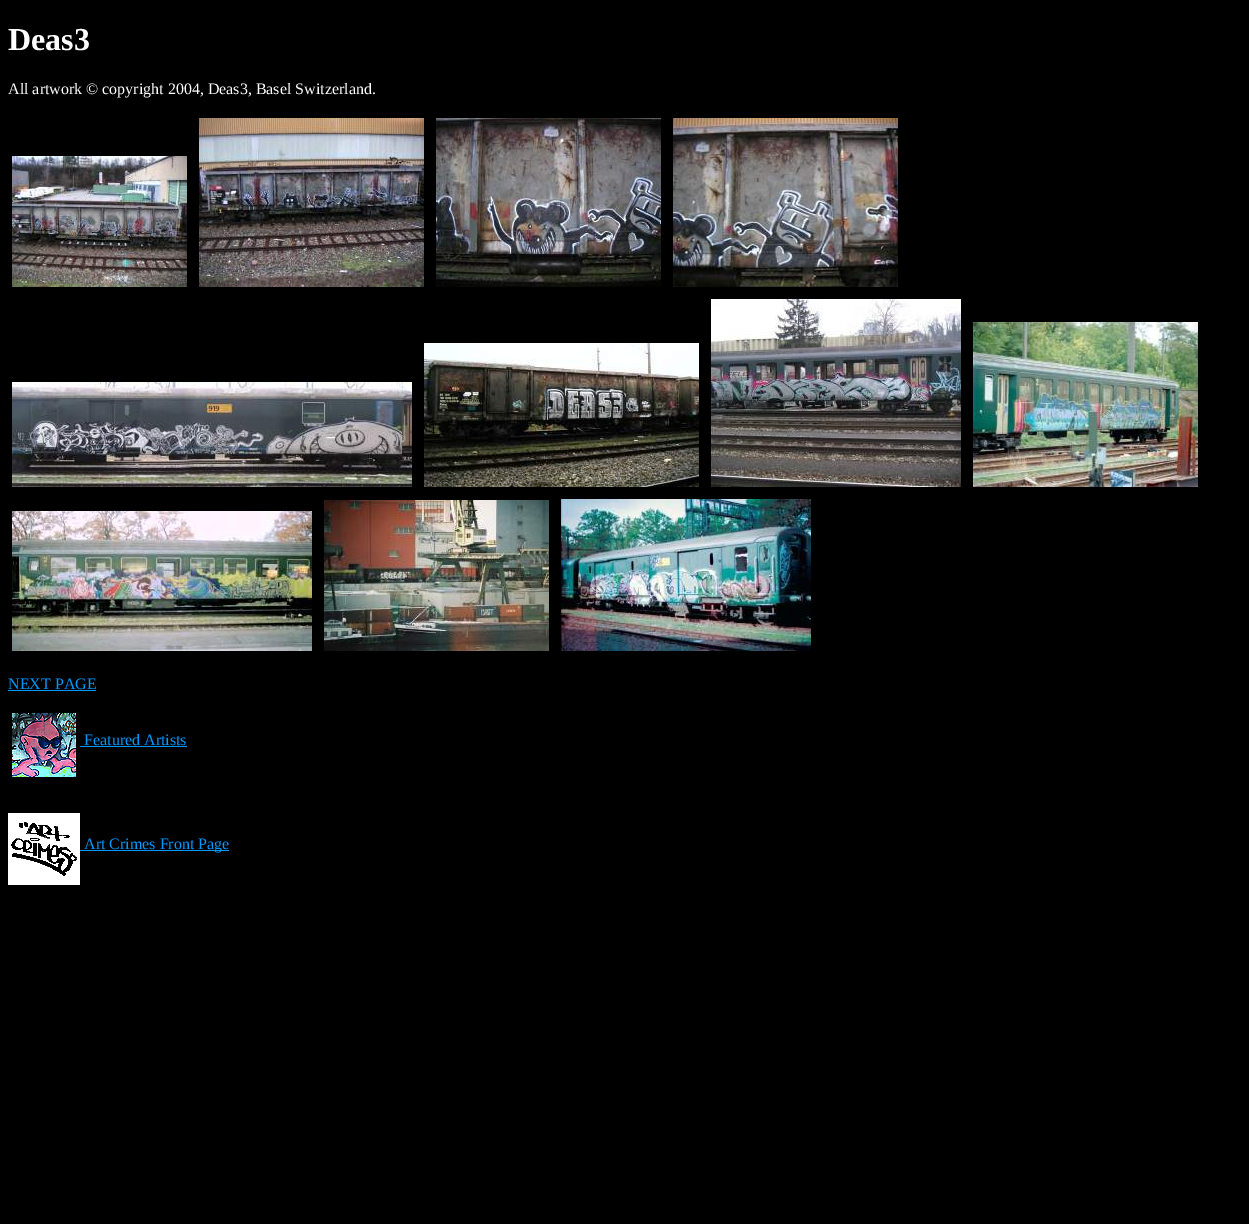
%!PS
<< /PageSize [1249 1224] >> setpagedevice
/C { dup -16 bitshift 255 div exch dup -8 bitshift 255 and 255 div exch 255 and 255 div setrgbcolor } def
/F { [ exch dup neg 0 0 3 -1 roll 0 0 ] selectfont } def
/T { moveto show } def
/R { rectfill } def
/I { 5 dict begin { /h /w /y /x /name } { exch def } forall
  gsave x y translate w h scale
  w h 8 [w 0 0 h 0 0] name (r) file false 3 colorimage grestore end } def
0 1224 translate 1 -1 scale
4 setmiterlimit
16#000000 C
0 0 1249 1224 R
/LiberationSerif-Bold 32 F
16#FFFFFF C
(Deas3) 8 50 T
/LiberationSerif-Regular 16 F
(All artwork © copyright 2004, Deas3, Basel Switzerland.) 8 94 T
(1.rgb) 12 156 175 131 I
(2.rgb) 199 118 225 169 I
(3.rgb) 436 118 225 169 I
(4.rgb) 673 118 225 169 I
(5.rgb) 12 382 400 105 I
(6.rgb) 424 343 275 144 I
(7.rgb) 711 299 250 188 I
(8.rgb) 973 322 225 165 I
(9.rgb) 12 511 300 140 I
(10.rgb) 324 500 225 151 I
(11.rgb) 561 499 250 152 I
16#0099FF C
(NEXT PAGE) 8 689 T
8 690 88 1 R
(12.rgb) 12 713 64 64 I
(Featured Artists) 84 745 T
80 746 107 1 R
(13.rgb) 8 813 72 72 I
80 850 149 1 R
(Art Crimes Front Page) 84 849 T
showpage
